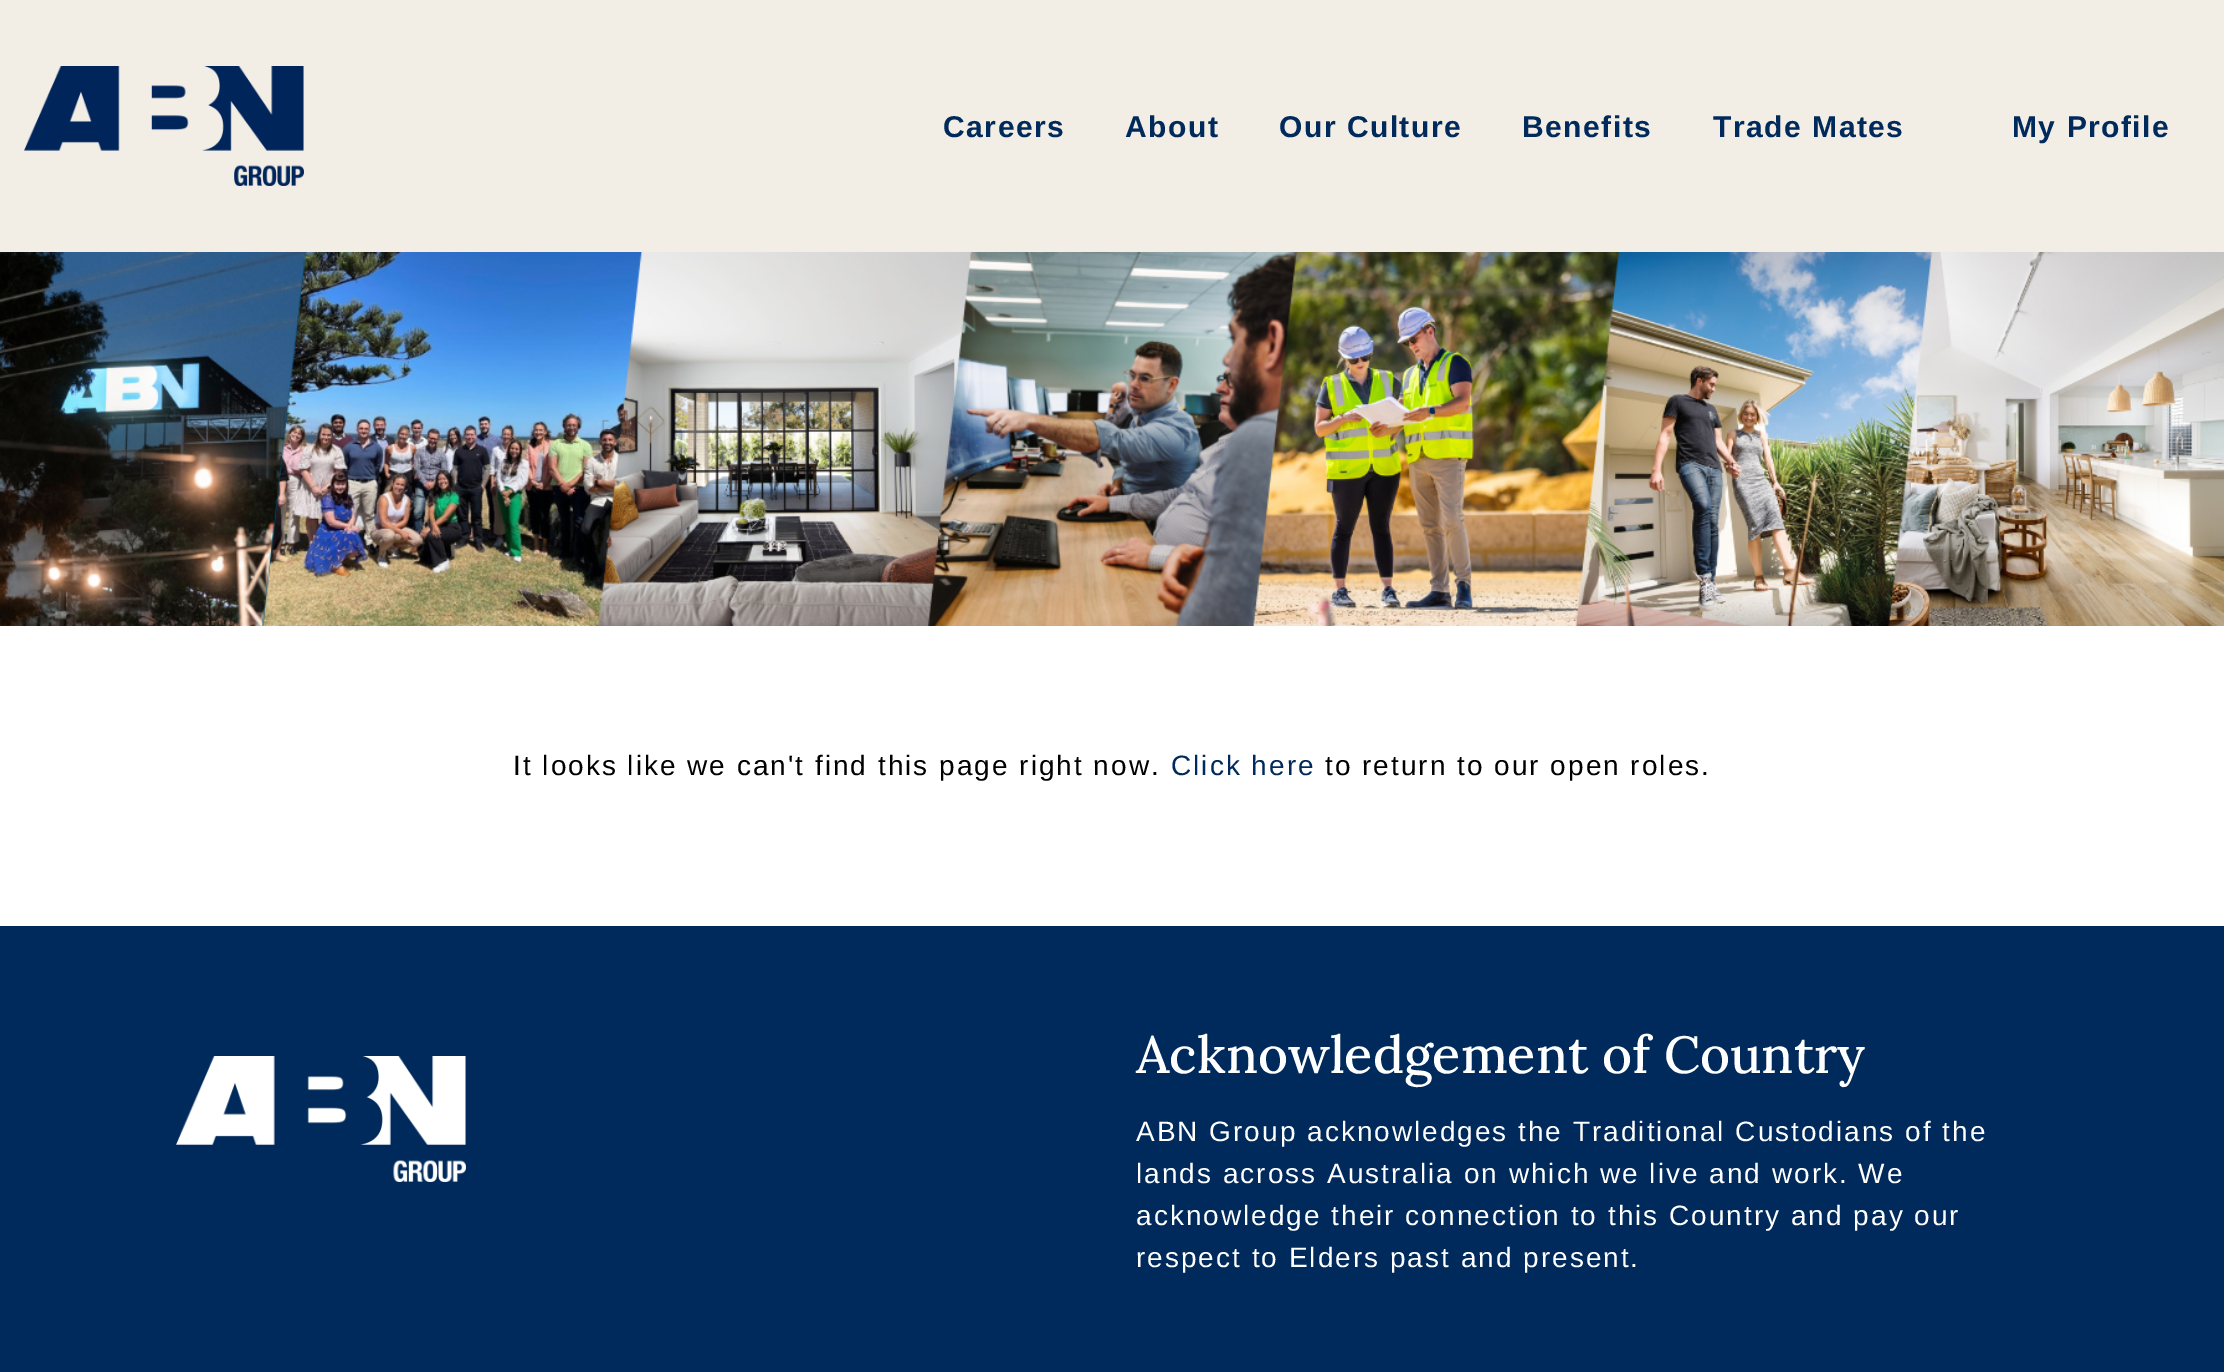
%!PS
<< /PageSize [2224 1372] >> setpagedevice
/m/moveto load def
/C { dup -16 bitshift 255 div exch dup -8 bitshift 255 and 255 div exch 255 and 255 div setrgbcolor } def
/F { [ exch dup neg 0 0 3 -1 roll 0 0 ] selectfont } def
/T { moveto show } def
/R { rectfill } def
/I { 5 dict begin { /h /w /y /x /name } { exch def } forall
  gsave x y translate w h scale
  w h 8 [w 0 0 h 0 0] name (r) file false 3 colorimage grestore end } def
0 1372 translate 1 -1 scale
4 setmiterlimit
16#FFFFFF C
0 0 2224 1372 R
16#F2EDE5 C
0 0 2224 252 R
(1.rgb) 24 66 280 120 I
/LiberationSans-Bold 30 F
16#002A5B C
943 137 m 1.5 0 (Careers) ashow
1125 137 m 1.5 0 (About) ashow
1279 137 m 1.5 0 (Our Culture) ashow
1522 137 m 1.5 0 (Benefits) ashow
1713 137 m 1.5 0 (Trade Mates) ashow
2012 137 m 1.5 0 (My Profile) ashow
(2.rgb) 0 252 2224 374 I
/LiberationSans-Regular 28 F
16#000000 C
513 775 m 2 0 (It looks like we can't find this page right now.) ashow
16#002A5B C
1171 775 m 2 0 (Click here) ashow
16#000000 C
1325 775 m 2 0 (to return to our open roles.) ashow
16#002A5B C
0 926 2224 446 R
(3.rgb) 176 1056 290 126 I
/Lora-Medium 52 F
16#FFFFFF C
(Acknowledgement of Country) 1136 1073 T
/LiberationSans-Regular 28 F
1136 1141 m 2 0 (ABN Group acknowledges the Traditional Custodians of the) ashow
1136 1183 m 2 0 (lands across Australia on which we live and work. We) ashow
1136 1225 m 2 0 (acknowledge their connection to this Country and pay our) ashow
1136 1267 m 2 0 (respect to Elders past and present.) ashow
showpage
